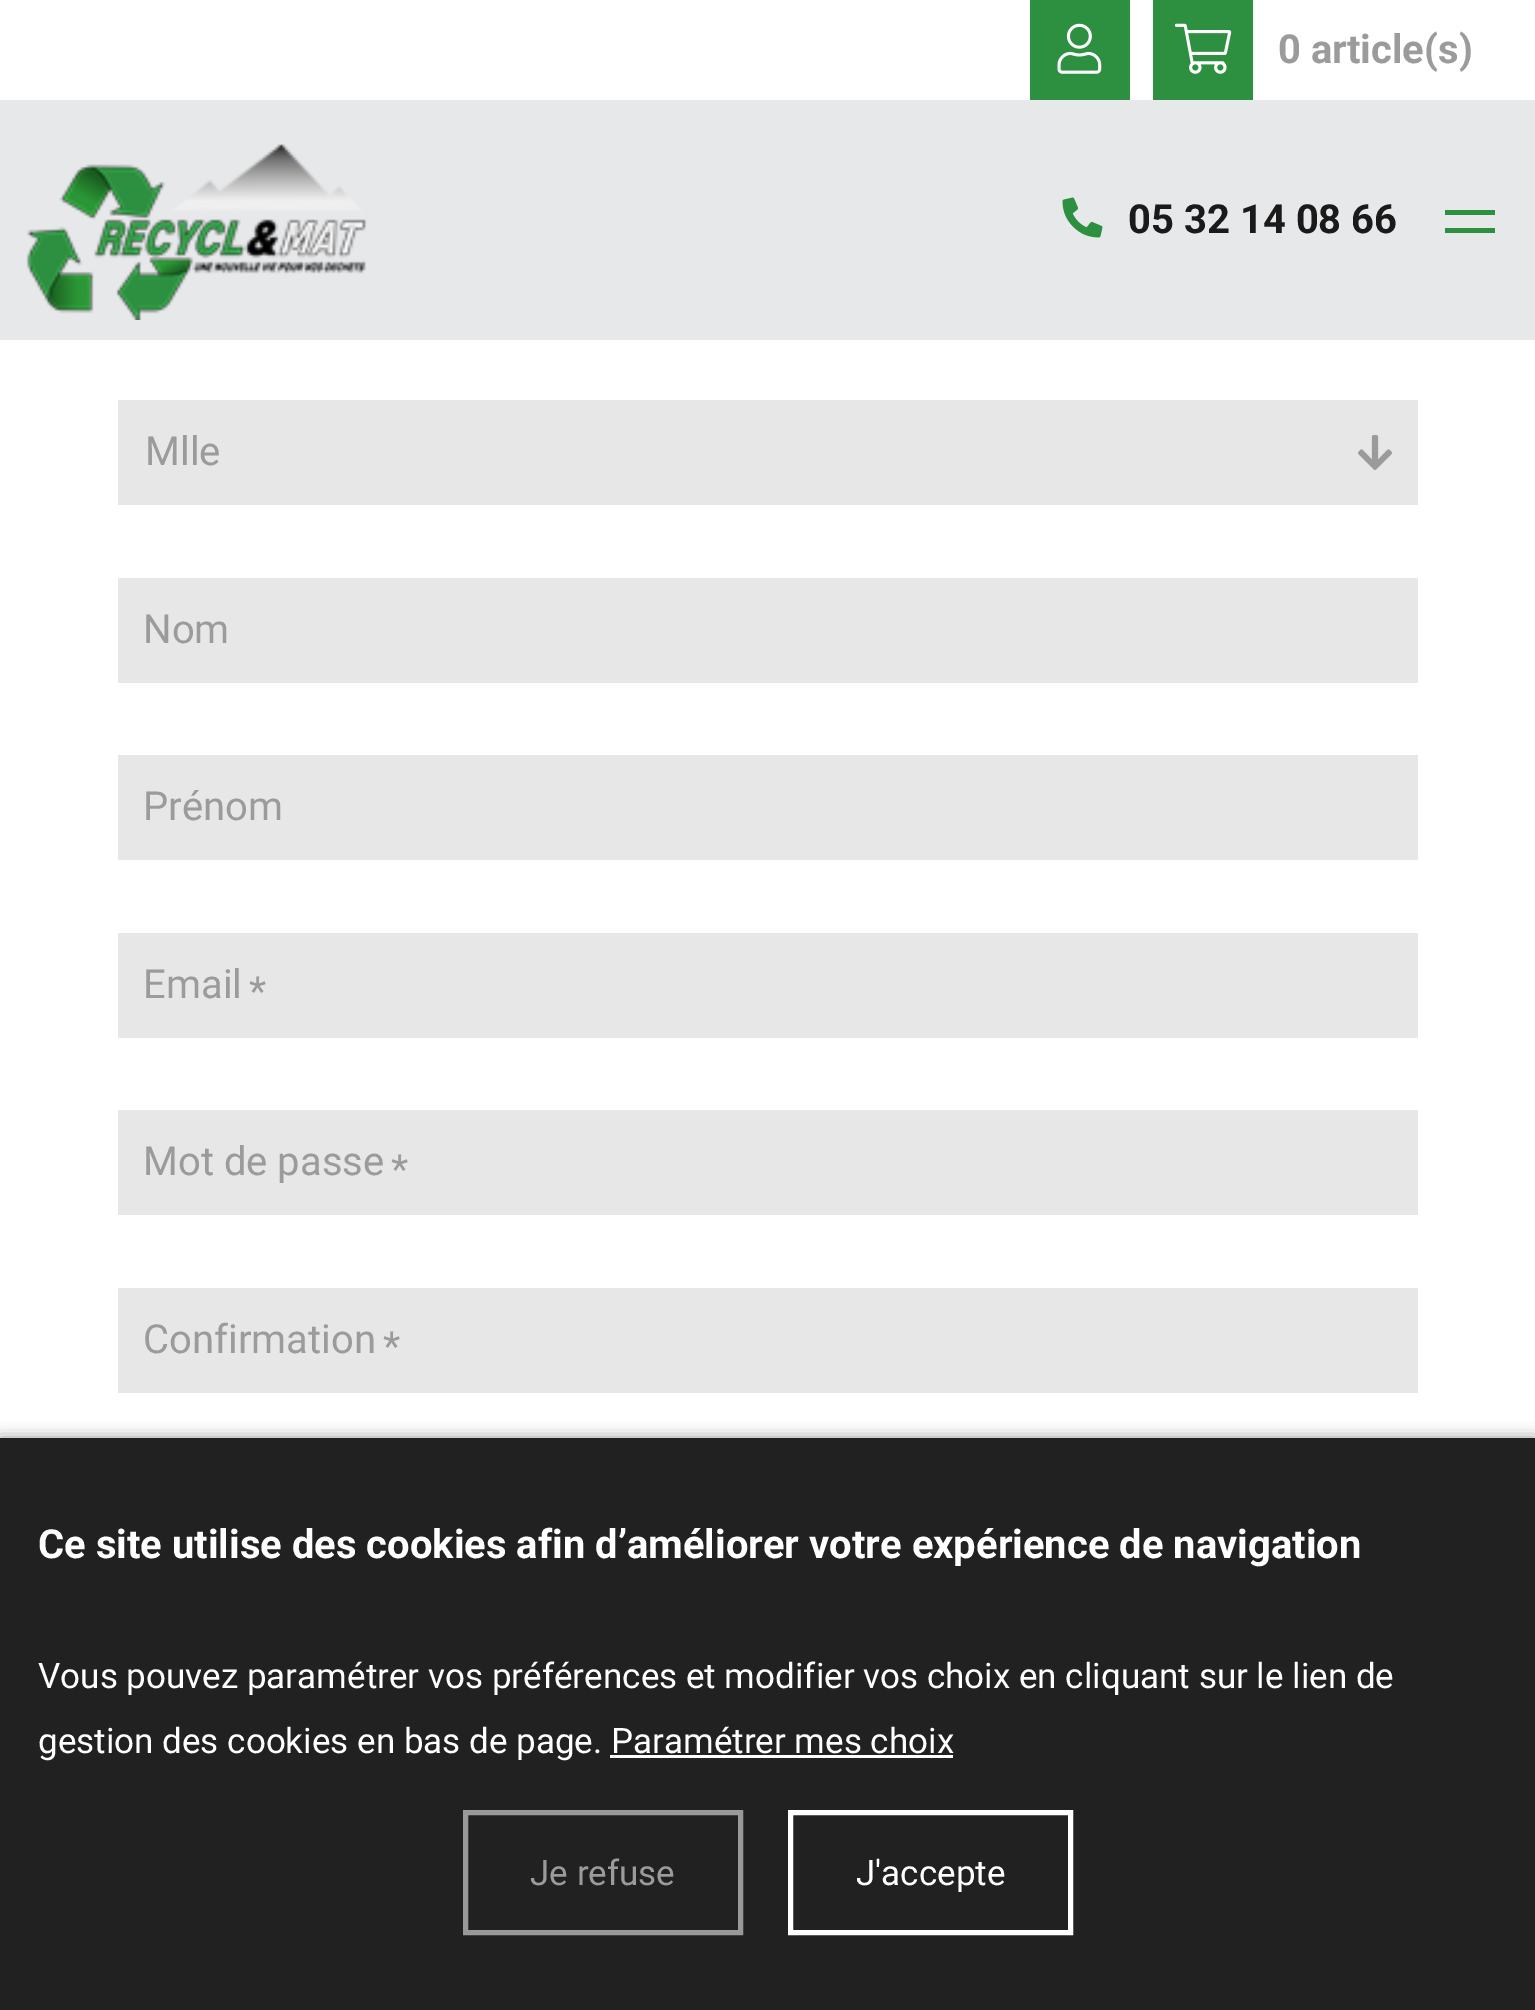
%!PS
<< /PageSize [1535 2010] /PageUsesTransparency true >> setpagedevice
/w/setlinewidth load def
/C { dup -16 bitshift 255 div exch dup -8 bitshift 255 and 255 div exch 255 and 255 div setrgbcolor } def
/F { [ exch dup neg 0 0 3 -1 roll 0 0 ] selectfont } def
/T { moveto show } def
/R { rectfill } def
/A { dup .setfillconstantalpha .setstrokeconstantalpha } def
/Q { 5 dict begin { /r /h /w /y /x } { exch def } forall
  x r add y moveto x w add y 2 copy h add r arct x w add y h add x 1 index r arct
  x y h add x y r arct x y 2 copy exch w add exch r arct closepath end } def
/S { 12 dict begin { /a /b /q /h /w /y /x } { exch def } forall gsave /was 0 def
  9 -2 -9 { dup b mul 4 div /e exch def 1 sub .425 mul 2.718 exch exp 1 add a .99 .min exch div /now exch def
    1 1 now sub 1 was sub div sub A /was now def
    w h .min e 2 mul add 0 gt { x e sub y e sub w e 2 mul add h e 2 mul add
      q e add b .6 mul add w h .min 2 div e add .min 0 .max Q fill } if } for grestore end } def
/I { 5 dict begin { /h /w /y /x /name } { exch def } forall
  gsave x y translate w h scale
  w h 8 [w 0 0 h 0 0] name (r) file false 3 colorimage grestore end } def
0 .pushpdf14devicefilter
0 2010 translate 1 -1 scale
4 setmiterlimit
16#FFFFFF C
0 0 1535 2010 R
16#2D9040 C
1030 0 100 100 R
(1.rgb) 1057 23 45 51 I
1153 0 100 100 R
(2.rgb) 1175 23 57 51 I
/Roboto-Bold 40 F
16#9B9B9B C
(0 article\(s\)) 1278 63 T
16#E7E8EA C
0 100 1535 240 R
(3.rgb) 26 144 341 176 I
(4.rgb) 1062 197 41 41 I
16#1B1A1A C
(05 32 14 08 66) 1128 233 T
16#2D9040 C
1445 210 50 5 R
1445 228 50 5 R
16#E7E7E7 C
118 400 1300 105 R
/Roboto-Regular 40 F
16#9B9B9B C
(Mlle) 145 465 T
(5.rgb) 1358 435 34 35 I
16#E7E7E7 C
118 578 1300 105 R
16#9B9B9B C
(Nom) 143 643 T
16#E7E7E7 C
118 755 1300 105 R
16#9B9B9B C
(Prénom) 143 820 T
16#E7E7E7 C
118 933 1300 105 R
16#9B9B9B C
(Email) 143 998 T
(*) 249 1005 T
16#E7E7E7 C
118 1110 1300 105 R
16#9B9B9B C
(Mot de passe) 143 1175 T
(*) 391 1183 T
16#E7E7E7 C
118 1288 1300 105 R
16#9B9B9B C
(Confirmation) 143 1353 T
(*) 383 1360 T
16#000000 C
0 1438 1535 572 0 7.5 .4 S
16#212121 C
0 1438 1535 572 R
/Roboto-Bold 40 F
16#FFFFFF C
(Ce site utilise des cookies afin d’améliorer votre expérience de navigation) 38 1558 T
/Roboto-Regular 35 F
(Vous pouvez paramétrer vos préférences et modifier vos choix en cliquant sur le lien de) 38 1688 T
(gestion des cookies en bas de page. Paramétrer mes choix) 38 1753 T
610 1755 343 3 R
16#999999 C
5 w
465.5 1812.5 275 120 rectstroke
16#9B9B9B C
(Je refuse) 530 1885 T
16#FFFFFF C
790.5 1812.5 280 120 rectstroke
(J'accepte) 856 1885 T
.poppdf14devicefilter showpage
